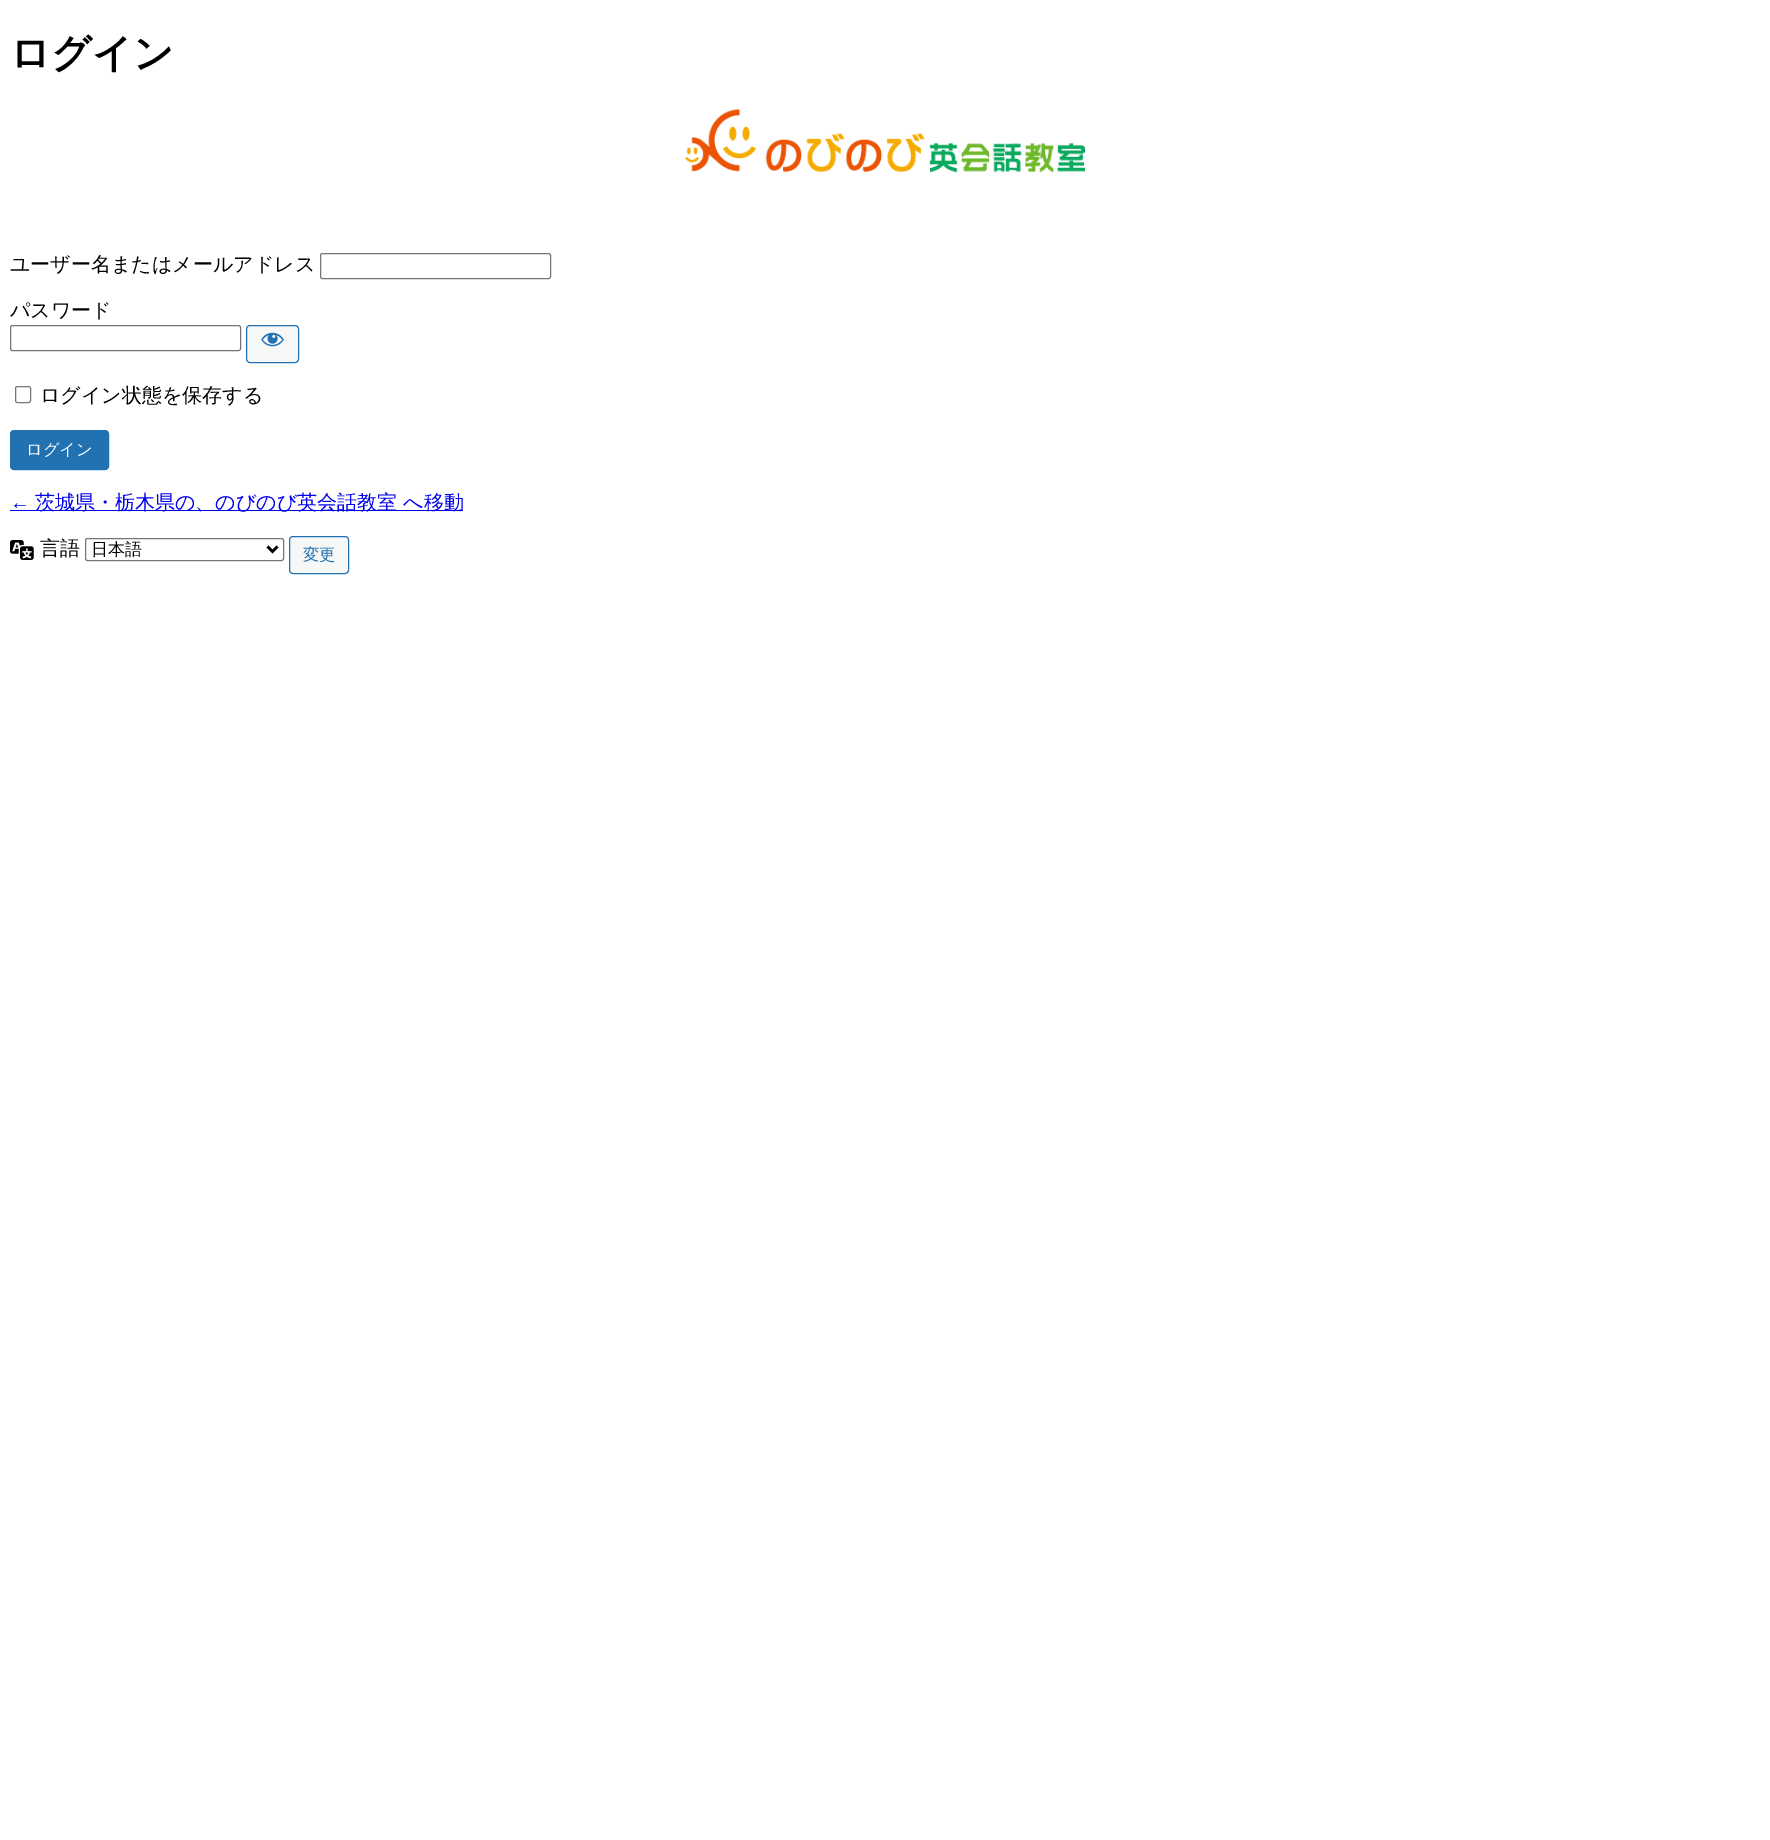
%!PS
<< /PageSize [1770 1840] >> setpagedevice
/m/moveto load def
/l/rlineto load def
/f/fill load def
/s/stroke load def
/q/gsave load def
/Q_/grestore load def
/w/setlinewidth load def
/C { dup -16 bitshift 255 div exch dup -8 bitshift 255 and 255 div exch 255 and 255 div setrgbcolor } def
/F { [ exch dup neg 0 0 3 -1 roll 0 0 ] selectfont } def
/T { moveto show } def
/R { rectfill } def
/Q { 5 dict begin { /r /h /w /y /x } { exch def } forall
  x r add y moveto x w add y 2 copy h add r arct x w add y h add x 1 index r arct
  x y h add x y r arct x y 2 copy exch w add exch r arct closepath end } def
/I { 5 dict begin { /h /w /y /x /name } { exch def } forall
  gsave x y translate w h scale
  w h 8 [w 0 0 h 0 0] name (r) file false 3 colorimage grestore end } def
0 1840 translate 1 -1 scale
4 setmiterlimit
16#FFFFFF C
0 0 1770 1840 R
/WenQuanYiZenHei-Bold 40 F
16#000000 C
(ログイン) 10 67 T
(1.rgb) 685 108 400 65 I
/WenQuanYiZenHei-Medium 20 F
(ユーザー名またはメールアドレス) 10 271 T
16#767676 C
320.5 253.5 230 25 2 Q s
16#000000 C
(パスワード) 10 317 T
16#767676 C
10.5 325.5 230 25 2 Q s
16#F6F7F7 C
246.5 325.5 52 37 3.5 Q q f Q_
16#2271B1 C
s
(2.rgb) 261 332 23 15 I
16#767676 C
15.5 386.5 15 16 2 Q s
16#000000 C
(ログイン状態を保存する) 40 402 T
16#2271B1 C
10.5 430.5 98 39 3.5 Q q f Q_
s
/WenQuanYiZenHei-Medium 16.25 F
16#FFFFFF C
(ログイン) 26 455 T
/LiberationSerif-Regular 20 F
16#0000EE C
(←) 10 509 T
10 510 453 1 R
/WenQuanYiZenHei-Medium 20 F
(茨城県・栃木県の、のびのび英会話教室 へ移動) 35 509 T
(3.rgb) 10 540 24 20 I
16#000000 C
(言語) 40 555 T
16#767676 C
85.5 538.5 198 22 2 Q s
16#000000 C
2.5 w
267.5 546.5 m 5 5 l 5 -5 l s
/WenQuanYiZenHei-Medium 17 F
(日本語) 91 555 T
16#F6F7F7 C
289.5 536.5 59 37 3.5 Q q f Q_
16#2271B1 C
1 w
s
/WenQuanYiZenHei-Medium 16.25 F
(変更) 303 560 T
showpage
